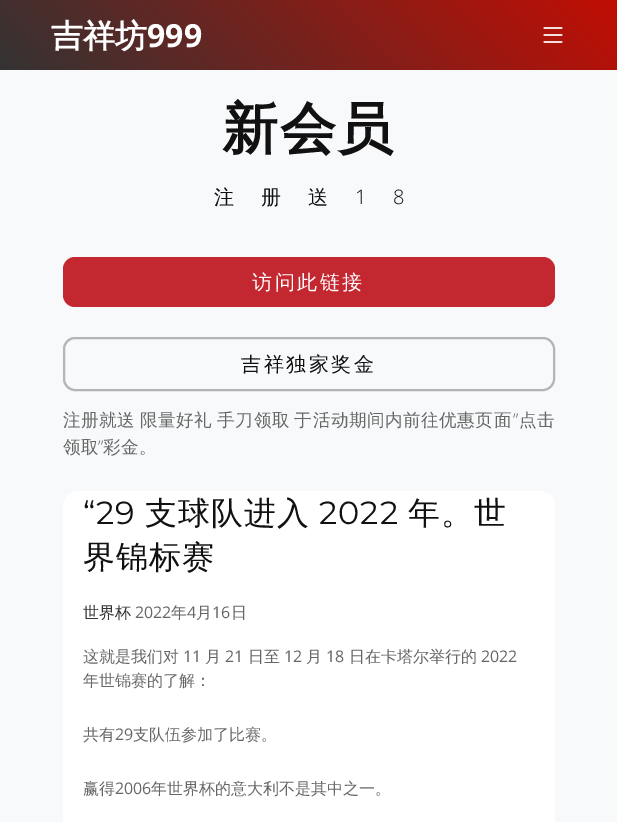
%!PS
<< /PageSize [617 822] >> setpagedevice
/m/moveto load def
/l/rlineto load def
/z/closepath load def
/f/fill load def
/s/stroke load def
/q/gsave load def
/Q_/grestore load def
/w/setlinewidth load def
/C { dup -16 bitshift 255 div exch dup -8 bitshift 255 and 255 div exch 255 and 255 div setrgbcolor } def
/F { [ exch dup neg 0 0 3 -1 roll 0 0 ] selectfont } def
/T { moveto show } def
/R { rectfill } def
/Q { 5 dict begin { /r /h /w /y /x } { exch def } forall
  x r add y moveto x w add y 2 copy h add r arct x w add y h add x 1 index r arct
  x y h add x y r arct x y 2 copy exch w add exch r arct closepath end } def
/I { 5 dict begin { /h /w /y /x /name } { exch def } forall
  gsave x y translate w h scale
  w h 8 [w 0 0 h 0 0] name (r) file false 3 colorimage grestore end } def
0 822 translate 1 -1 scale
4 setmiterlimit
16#FFFFFF C
0 0 617 822 R
q 0 0 m 617 0 l 0 70 l -617 0 l z clip newpath
<< /ShadingType 2 /ColorSpace /DeviceRGB /Coords [137 207 480 -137] /Extend [true true] /Function << /FunctionType 2 /Domain [0 1] /C0 [.2 .2 .2] /C1 [.757 .055 .016] /N 1 >> >> shfill Q_
/WenQuanYiZenHei-Bold 32 F
(吉祥坊) 51 47 T
/OpenSans-Bold 32 F
(999) 147 47 T
(1.rgb) 543 27 20 16 I
16#F8F9FA C
0 70 617 752 R
/WenQuanYiZenHei-Bold 56 F
16#111111 C
222 148 m 1.5 0 (新会员) ashow
/WenQuanYiZenHei-Medium 20 F
214 204 m 27 0 (注册送) ashow
/OpenSans-Light 20 F
355 204 m 27 0 (18) ashow
16#C3272F C
63 257 492 50 12 Q f
/WenQuanYiZenHei-Medium 20 F
16#FFFFFF C
252 289 m 2.5 0 (访问此链接) ashow
16#B4B4B5 C
2 w
64 338 490 52 11 Q s
16#111111 C
241 371 m 2.5 0 (吉祥独家奖金) ashow
/WenQuanYiZenHei-Medium 17.6 F
16#666666 C
63 426 m -1 0 32 .5 0 (注册就送 限量好礼 手刀领取 于活动期间内前往优惠页面) awidthshow
/OpenSans-Light 17.6 F
513 426 m .5 0 (”) ashow
/WenQuanYiZenHei-Medium 17.6 F
519 426 m .5 0 (点击) ashow
(领取 彩金。) 63 453 T
/OpenSans-Light 17.6 F
(”) 98 453 T
16#FFFFFF C
63 491 492 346 15 Q f
/Montserrat-Regular 32 F
16#111111 C
83 524 m 1 0 (“29) ashow
/WenQuanYiZenHei-Medium 32 F
145 524 m 1 0 (支球队进入) ashow
/Montserrat-Regular 32 F
319 524 m 1 0 (2022) ashow
/WenQuanYiZenHei-Medium 32 F
408 524 m 1 0 (年。世) ashow
83 568 m 1 0 (界锦标赛) ashow
/WenQuanYiZenHei-Medium 16 F
16#333333 C
(世界杯) 83 618 T
/OpenSans-Regular 16 F
16#666666 C
(2022) 135 618 T
/WenQuanYiZenHei-Medium 16 F
(年) 171 618 T
/OpenSans-Regular 16 F
(4) 187 618 T
/WenQuanYiZenHei-Medium 16 F
(月) 196 618 T
/OpenSans-Regular 16 F
(16) 212 618 T
/WenQuanYiZenHei-Medium 16 F
(日) 231 618 T
(这就是我们对) 83 662 T
/OpenSans-Regular 16 F
(11) 183 662 T
/WenQuanYiZenHei-Medium 16 F
(月) 205 662 T
/OpenSans-Regular 16 F
(21) 225 662 T
/WenQuanYiZenHei-Medium 16 F
(日至) 248 662 T
/OpenSans-Regular 16 F
(12) 284 662 T
/WenQuanYiZenHei-Medium 16 F
(月) 306 662 T
/OpenSans-Regular 16 F
(18) 326 662 T
/WenQuanYiZenHei-Medium 16 F
(日在卡塔尔举行的) 349 662 T
/OpenSans-Regular 16 F
(2022) 481 662 T
/WenQuanYiZenHei-Medium 16 F
(年世锦赛的了解：) 83 686 T
(共有) 83 740 T
/OpenSans-Regular 16 F
(29) 115 740 T
/WenQuanYiZenHei-Medium 16 F
(支队伍参加了比赛。) 133 740 T
(赢得) 83 794 T
/OpenSans-Regular 16 F
(2006) 115 794 T
/WenQuanYiZenHei-Medium 16 F
(年世界杯的意大利不是其中之一。) 151 794 T
showpage
